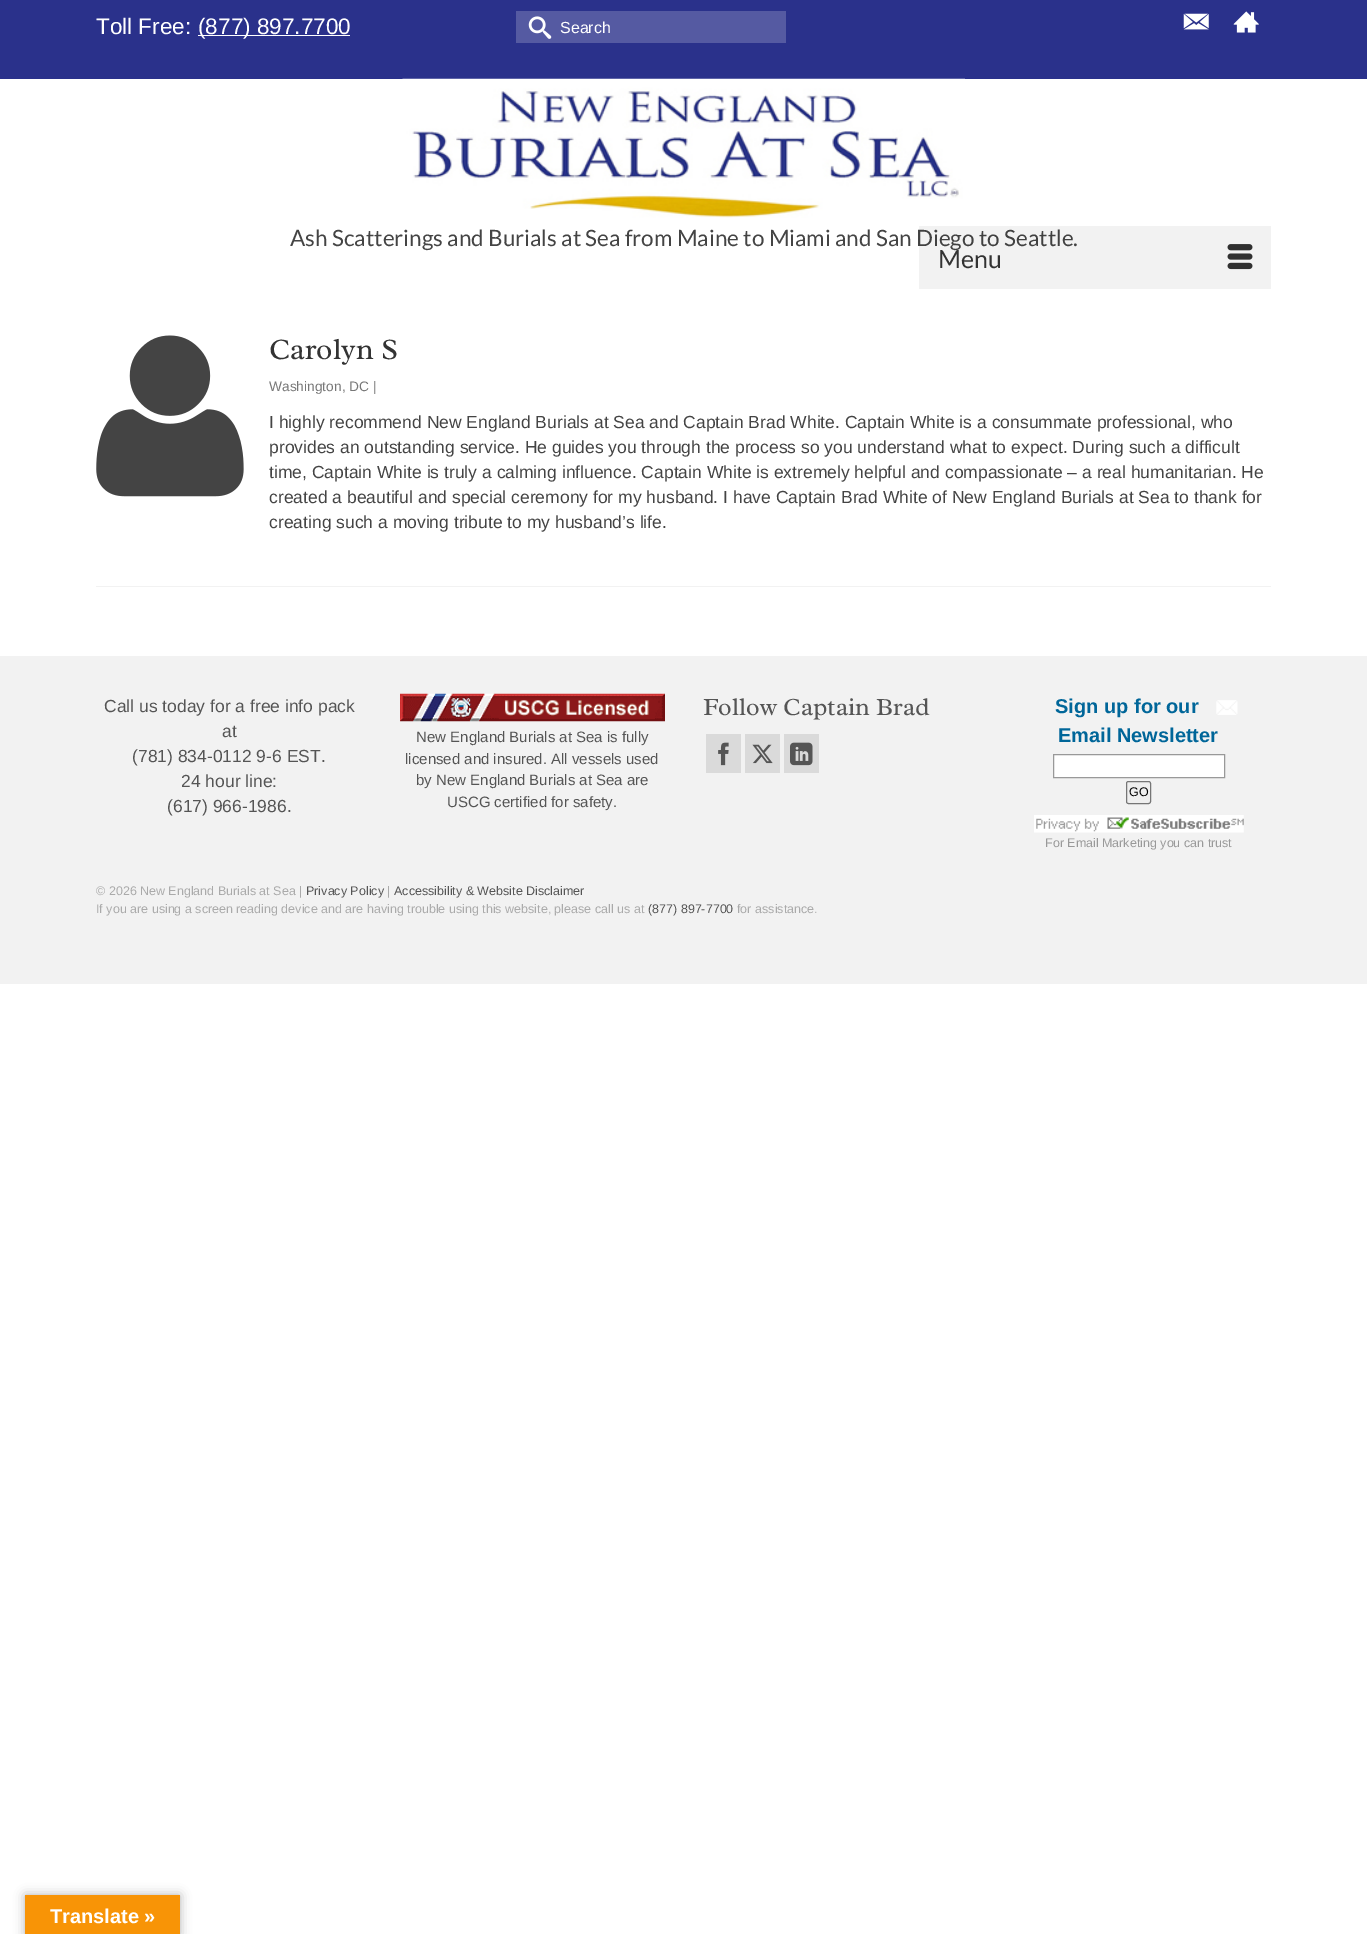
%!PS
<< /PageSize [1367 1934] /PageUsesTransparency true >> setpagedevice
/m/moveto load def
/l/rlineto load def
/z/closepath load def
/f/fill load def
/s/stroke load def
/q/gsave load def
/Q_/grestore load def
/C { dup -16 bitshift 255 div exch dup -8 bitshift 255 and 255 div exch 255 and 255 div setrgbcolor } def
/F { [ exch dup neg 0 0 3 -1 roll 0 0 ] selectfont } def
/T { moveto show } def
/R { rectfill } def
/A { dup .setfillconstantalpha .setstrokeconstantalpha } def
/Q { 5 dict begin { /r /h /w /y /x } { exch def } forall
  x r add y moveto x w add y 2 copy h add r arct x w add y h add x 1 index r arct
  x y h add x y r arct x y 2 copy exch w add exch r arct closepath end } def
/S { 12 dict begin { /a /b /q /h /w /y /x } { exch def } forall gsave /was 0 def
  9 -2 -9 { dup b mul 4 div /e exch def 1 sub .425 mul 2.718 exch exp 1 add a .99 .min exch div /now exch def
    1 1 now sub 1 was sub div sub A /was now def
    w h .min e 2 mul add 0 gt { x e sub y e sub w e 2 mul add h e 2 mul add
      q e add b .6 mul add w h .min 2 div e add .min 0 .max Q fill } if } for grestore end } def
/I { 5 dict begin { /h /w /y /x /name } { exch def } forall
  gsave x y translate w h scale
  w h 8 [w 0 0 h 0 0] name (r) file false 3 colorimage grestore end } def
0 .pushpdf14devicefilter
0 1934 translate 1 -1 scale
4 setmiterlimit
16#FFFFFF C
0 0 1367 1934 R
16#2A318B C
0 0 1367 79 R
/LiberationSans-Regular 22.5 F
16#FFFFFF C
(Toll Free:) 96 34 T
198 35 152 1 R
(\(877\) 897.7700) 198 34 T
16#555AA2 C
516 11 270 32 R
(1.rgb) 528 16 24 23 I
/LiberationSans-Regular 16 F
16#FFFFFF C
(Search) 560 33 T
(2.rgb) 1183 13 26 17 I
(3.rgb) 1233 11 26 22 I
(4.rgb) 402 78 563 140 I
/Lato-Regular 22.5 F
16#444444 C
(Ash Scatterings and Burials at Sea from Maine to Miami and San Diego to Seattle.) 290 246 T
0.05 A
16#000000 C
919 226 352 63 R
/Lato-Regular 25 F
1 A
16#333333 C
(Menu) 938 268 T
(5.rgb) 1227 244 26 26 I
(6.rgb) 96 335 148 162 I
/Radley-Regular 30 F
(Carolyn S) 269 359 T
/LiberationSans-Regular 13.75 F
16#777777 C
(Washington, DC |) 269 391 T
/LiberationSans-Regular 17.5 F
16#444444 C
(I highly recommend New England Burials at Sea and Captain Brad White. Captain White is a consummate professional, who) 269 428 T
(provides an outstanding service. He guides you through the process so you understand what to expect. During such a difficult) 269 453 T
(time, Captain White is truly a calming influence. Captain White is extremely helpful and compassionate – a real humanitarian. He) 269 478 T
(created a beautiful and special ceremony for my husband. I have Captain Brad White of New England Burials at Sea to thank for) 269 503 T
(creating such a moving tribute to my husband’s life.) 269 528 T
16#F2F2F2 C
96 586 1175 1 R
0 656 1367 328 R
16#555555 C
(Call us today for a free info pack) 104 712 T
(at) 222 737 T
(\(781\) 834-0112 9-6 EST.) 132 762 T
(24 hour line:) 181 787 T
(\(617\) 966-1986.) 167 812 T
(7.rgb) 400 693 265 29 I
/LiberationSans-Regular 15 F
(New England Burials at Sea is fully) 416 742 T
(licensed and insured. All vessels used) 405 764 T
(by New England Burials at Sea are) 416 785 T
(USCG certified for safety.) 447 807 T
/Radley-Regular 25 F
(Follow Captain Brad) 703 715 T
16#DADADA C
706 734 35 39 R
(8.rgb) 718 742 11 24 I
745 734 35 39 R
(9.rgb) 752 744 21 20 I
784 734 35 39 R
(10.rgb) 790 742 23 24 I
/LiberationSans-Bold 20 F
16#006699 C
(Sign up for our) 1055 713 T
(11.rgb) 1216 700 22 15 I
(Email Newsletter) 1058 742 T
16#FFFFFF C
1053.5 754.5 m 171 0 l 0 23 l -171 0 l z q f Q_
16#999999 C
s
16#EFEFEF C
1126.5 781.5 24 22 2 Q q f Q_
16#767676 C
s
/LiberationSans-Regular 12.5 F
16#000000 C
(GO) 1129 796 T
(12.rgb) 1034 815 210 18 I
16#999999 C
(For Email Marketing you can trust) 1045 847 T
16#AAAAAA C
(© 2026 New England Burials at Sea |) 96 895 T
16#555555 C
(Privacy Policy) 306 895 T
16#AAAAAA C
(|) 387 895 T
16#555555 C
(Accessibility & Website Disclaimer) 394 895 T
16#AAAAAA C
(If you are using a screen reading device and are having trouble using this website, please call us at) 96 913 T
16#555555 C
(\(877\) 897-7700) 648 913 T
16#AAAAAA C
(for assistance.) 737 913 T
16#000000 C
25 1895 155 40 0 5.5 .3 S
16#F89406 C
25 1895 155 39 R
/LiberationSans-Bold 20 F
16#FFFFFF C
(Translate ») 50 1923 T
.poppdf14devicefilter showpage
